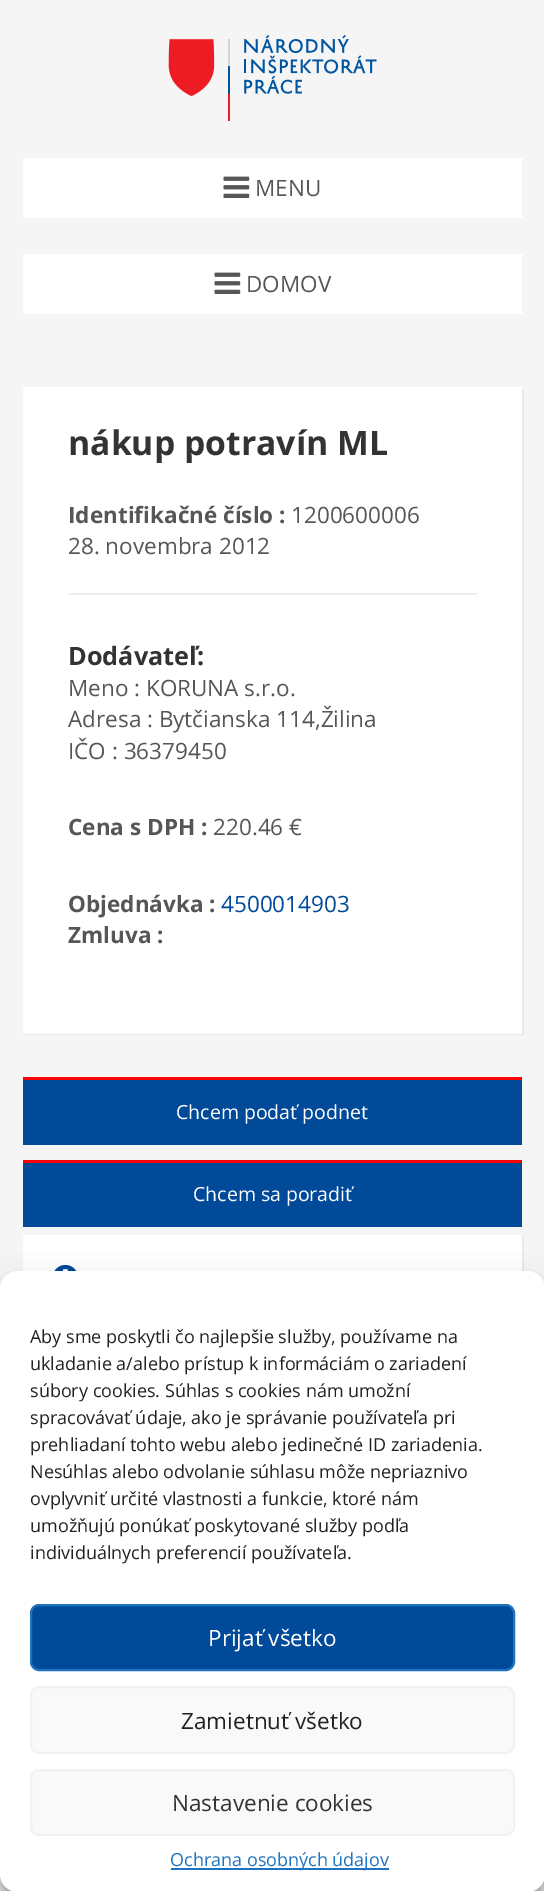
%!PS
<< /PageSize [544 1891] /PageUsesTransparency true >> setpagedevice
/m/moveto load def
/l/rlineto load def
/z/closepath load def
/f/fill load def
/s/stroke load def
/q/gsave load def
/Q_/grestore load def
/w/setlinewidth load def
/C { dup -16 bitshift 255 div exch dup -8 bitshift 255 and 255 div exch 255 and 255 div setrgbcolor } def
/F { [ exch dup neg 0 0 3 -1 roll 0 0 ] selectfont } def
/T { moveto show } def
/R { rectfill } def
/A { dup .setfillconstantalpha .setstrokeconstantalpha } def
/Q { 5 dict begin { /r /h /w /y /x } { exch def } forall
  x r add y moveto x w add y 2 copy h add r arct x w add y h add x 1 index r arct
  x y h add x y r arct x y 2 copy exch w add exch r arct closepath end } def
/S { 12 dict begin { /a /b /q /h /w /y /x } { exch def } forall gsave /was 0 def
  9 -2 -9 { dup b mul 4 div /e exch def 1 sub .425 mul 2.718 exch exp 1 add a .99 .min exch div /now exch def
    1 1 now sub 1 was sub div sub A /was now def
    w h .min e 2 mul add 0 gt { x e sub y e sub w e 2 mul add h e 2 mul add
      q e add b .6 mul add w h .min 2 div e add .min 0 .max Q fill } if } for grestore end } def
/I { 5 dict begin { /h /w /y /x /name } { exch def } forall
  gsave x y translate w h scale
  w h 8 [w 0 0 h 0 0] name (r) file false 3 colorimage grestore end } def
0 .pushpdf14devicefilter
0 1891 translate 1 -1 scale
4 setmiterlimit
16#F5F5F5 C
0 0 544 1891 R
(1.rgb) 168 34 209 87 I
16#FFFFFF C
23 158 499 60 R
(2.rgb) 223 176 27 22 I
/OpenSans-Regular 22.5 F
16#565656 C
(MENU) 255 196 T
16#FFFFFF C
23 254 499 60 R
(2.rgb) 214 272 27 22 I
16#565656 C
(DOMOV) 246 292 T
16#E9E9E9 C
24 1034 m 0 1 l 500 0 l 0 -646 l -2 0 l 0 645 l z f
16#FFFFFF C
23 387 499 647 R
/OpenSans-Bold 33.75 F
16#333333 C
(nákup potravín ML) 68 455 T
/OpenSans-Bold 22.5 F
16#565656 C
(Identifikačné číslo :) 68 523 T
/OpenSans-Regular 22.5 F
(1200600006) 291 523 T
(28. novembra 2012) 68 554 T
16#EEEEEE C
68 593 409 2 R
/OpenSans-Bold 25.25 F
16#333333 C
(Dodávateľ:) 68 665 T
/OpenSans-Regular 22.5 F
16#565656 C
(Meno : KORUNA s.r.o.) 68 696 T
(Adresa : Bytčianska 114,Žilina) 68 727 T
(IČO : 36379450) 68 759 T
/OpenSans-Bold 22.5 F
(Cena s DPH :) 68 835 T
/OpenSans-Regular 22.5 F
(220.46 €) 213 835 T
/OpenSans-Bold 22.5 F
(Objednávka :) 68 912 T
/OpenSans-Regular 22.5 F
16#004A99 C
(4500014903) 221 912 T
/OpenSans-Bold 22.5 F
16#565656 C
(Zmluva :) 68 943 T
16#004A99 C
23 1080 499 65 R
16#FF0000 C
23 1077 499 3 R
/OpenSans-Regular 19.5 F
16#FFFFFF C
(Chcem podať podnet) 176 1119 T
16#004A99 C
23 1163 499 64 R
16#FF0000 C
23 1160 499 3 R
16#FFFFFF C
(Chcem sa poradiť) 193 1201 T
16#E9E9E9 C
24 1672 m 0 2 l 500 0 l 0 -438 l -2 0 l 0 436 l z f
16#FFFFFF C
23 1235 499 36 R
(3.rgb) 54 1264 23 7 I
16#000000 C
0 1280 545 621 18 4.5 .23 S
0 1286 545 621 18 15 .19 S
16#FFFFFF C
0 1271 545 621 18 Q f
/OpenSans-Regular 18 F
16#222222 C
(Aby sme poskytli čo najlepšie služby, používame na) 30 1343 T
(ukladanie a/alebo prístup k informáciám o zariadení) 30 1370 T
(súbory cookies. Súhlas s cookies nám umožní) 30 1397 T
(spracovávať údaje, ako je správanie používateľa pri) 30 1424 T
(prehliadaní tohto webu alebo jedinečné ID zariadenia.) 30 1451 T
(Nesúhlas alebo odvolanie súhlasu môže nepriaznivo) 30 1478 T
(ovplyvniť určité vlastnosti a funkcie, ktoré nám) 30 1505 T
(umožňujú ponúkať poskytované služby podľa) 30 1532 T
(individuálnych preferencií používateľa.) 30 1559 T
16#004A99 C
31 1605 483 65 8 Q q f Q_
16#1E73BE C
2 w
s
/OpenSans-Regular 22.5 F
16#FFFFFF C
(Prijať všetko) 208 1646 T
16#F9F9F9 C
31 1687 483 66 8 Q q f Q_
16#F2F2F2 C
s
16#222222 C
(Zamietnuť všetko) 181 1729 T
16#F9F9F9 C
31 1770 483 65 8 Q q f Q_
16#F2F2F2 C
s
16#333333 C
(Nastavenie cookies) 172 1811 T
16#1E73BE C
171 1868 218 2 R
/OpenSans-Regular 18 F
(Ochrana osobných údajov) 170 1866 T
.poppdf14devicefilter showpage
